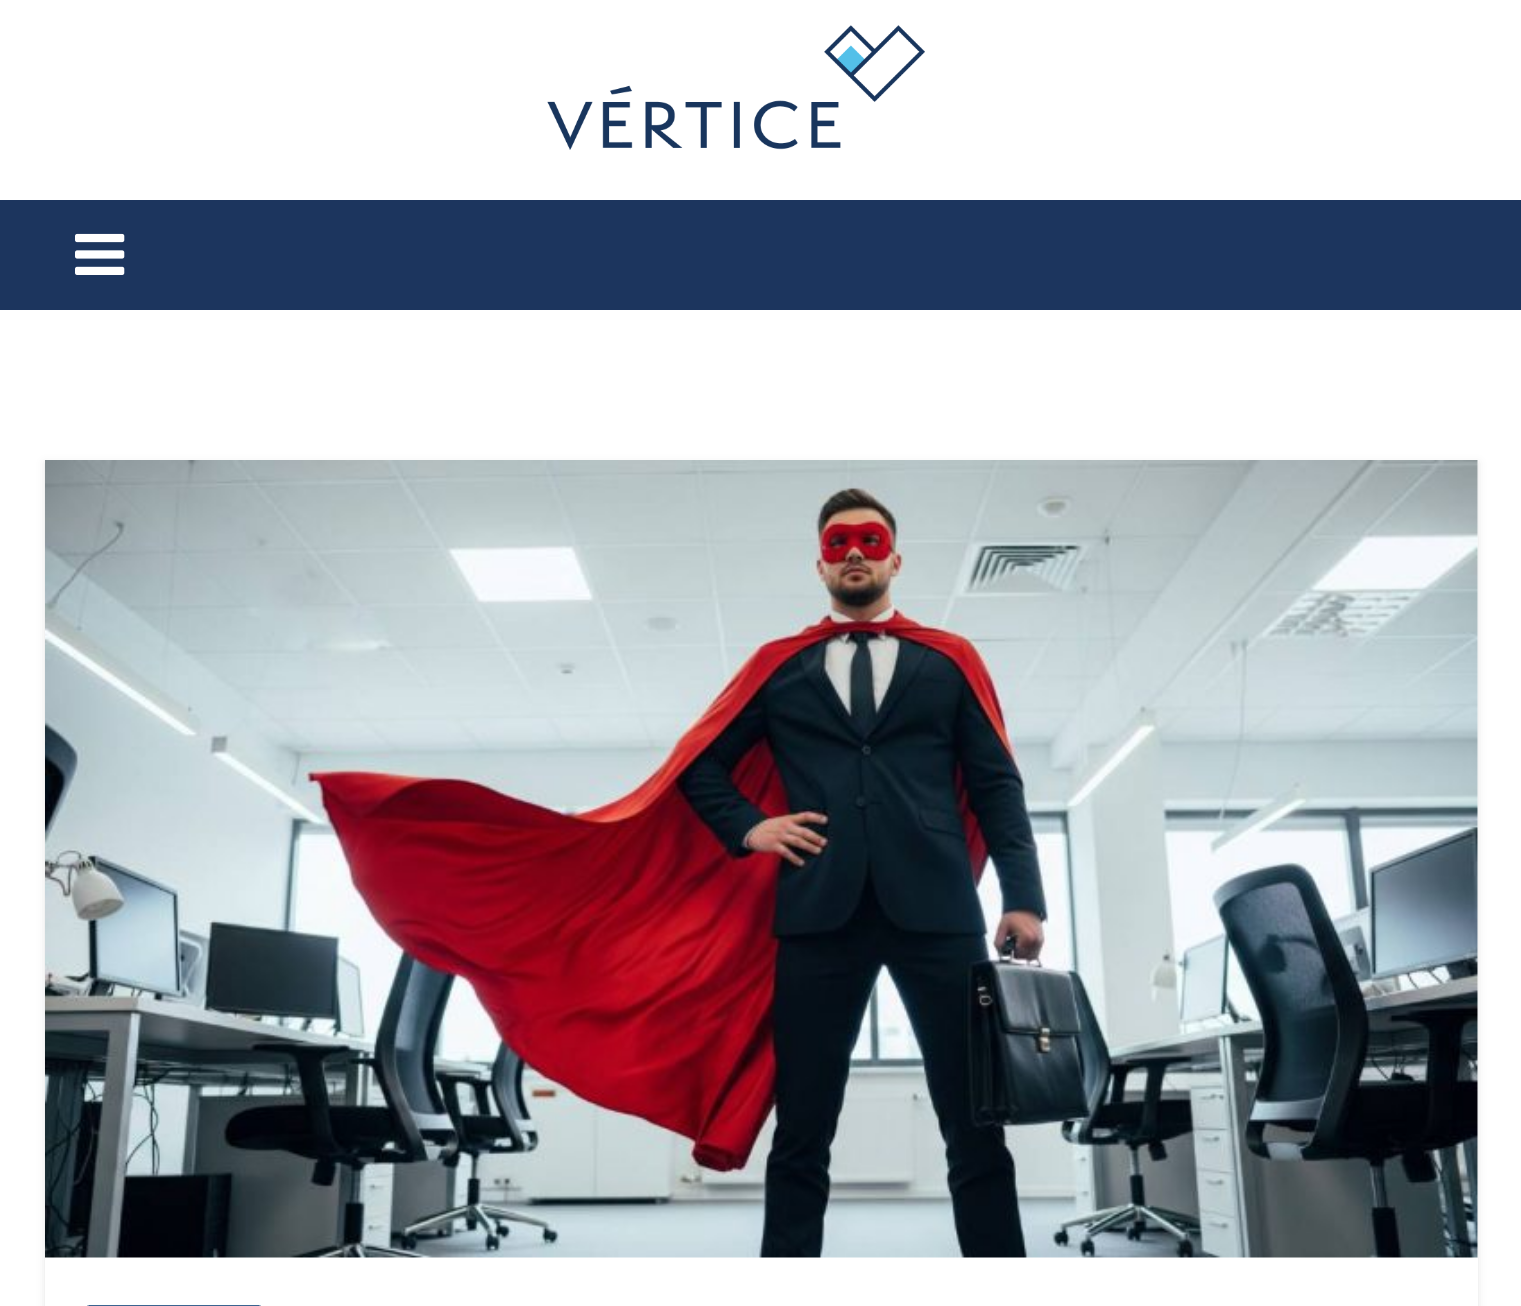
%!PS
<< /PageSize [1521 1306] /PageUsesTransparency true >> setpagedevice
/m/moveto load def
/l/rlineto load def
/z/closepath load def
/f/fill load def
/q/gsave load def
/Q_/grestore load def
/C { dup -16 bitshift 255 div exch dup -8 bitshift 255 and 255 div exch 255 and 255 div setrgbcolor } def
/R { rectfill } def
/A { dup .setfillconstantalpha .setstrokeconstantalpha } def
/Q { 5 dict begin { /r /h /w /y /x } { exch def } forall
  x r add y moveto x w add y 2 copy h add r arct x w add y h add x 1 index r arct
  x y h add x y r arct x y 2 copy exch w add exch r arct closepath end } def
/S { 12 dict begin { /a /b /q /h /w /y /x } { exch def } forall gsave /was 0 def
  9 -2 -9 { dup b mul 4 div /e exch def 1 sub .425 mul 2.718 exch exp 1 add a .99 .min exch div /now exch def
    1 1 now sub 1 was sub div sub A /was now def
    w h .min e 2 mul add 0 gt { x e sub y e sub w e 2 mul add h e 2 mul add
      q e add b .6 mul add w h .min 2 div e add .min 0 .max Q fill } if } for grestore end } def
/I { 5 dict begin { /h /w /y /x /name } { exch def } forall
  gsave x y translate w h scale
  w h 8 [w 0 0 h 0 0] name (r) file false 3 colorimage grestore end } def
0 .pushpdf14devicefilter
0 1306 translate 1 -1 scale
4 setmiterlimit
16#FFFFFF C
0 0 1521 1306 R
(1.rgb) 547 25 378 125 I
16#1C355E C
0 200 1521 110 R
(2.rgb) 75 233 50 42 I
q
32 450 m 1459 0 l 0 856 l -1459 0 l z 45 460 m 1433 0 l 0 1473 l -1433 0 l z eoclip newpath
16#000000 C
45 463 1433 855 0 4 .1 S
Q_
(3.rgb) 45 460 1433 798 I
16#3A6490 C
83 1305 182 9 8 Q f
.poppdf14devicefilter showpage
